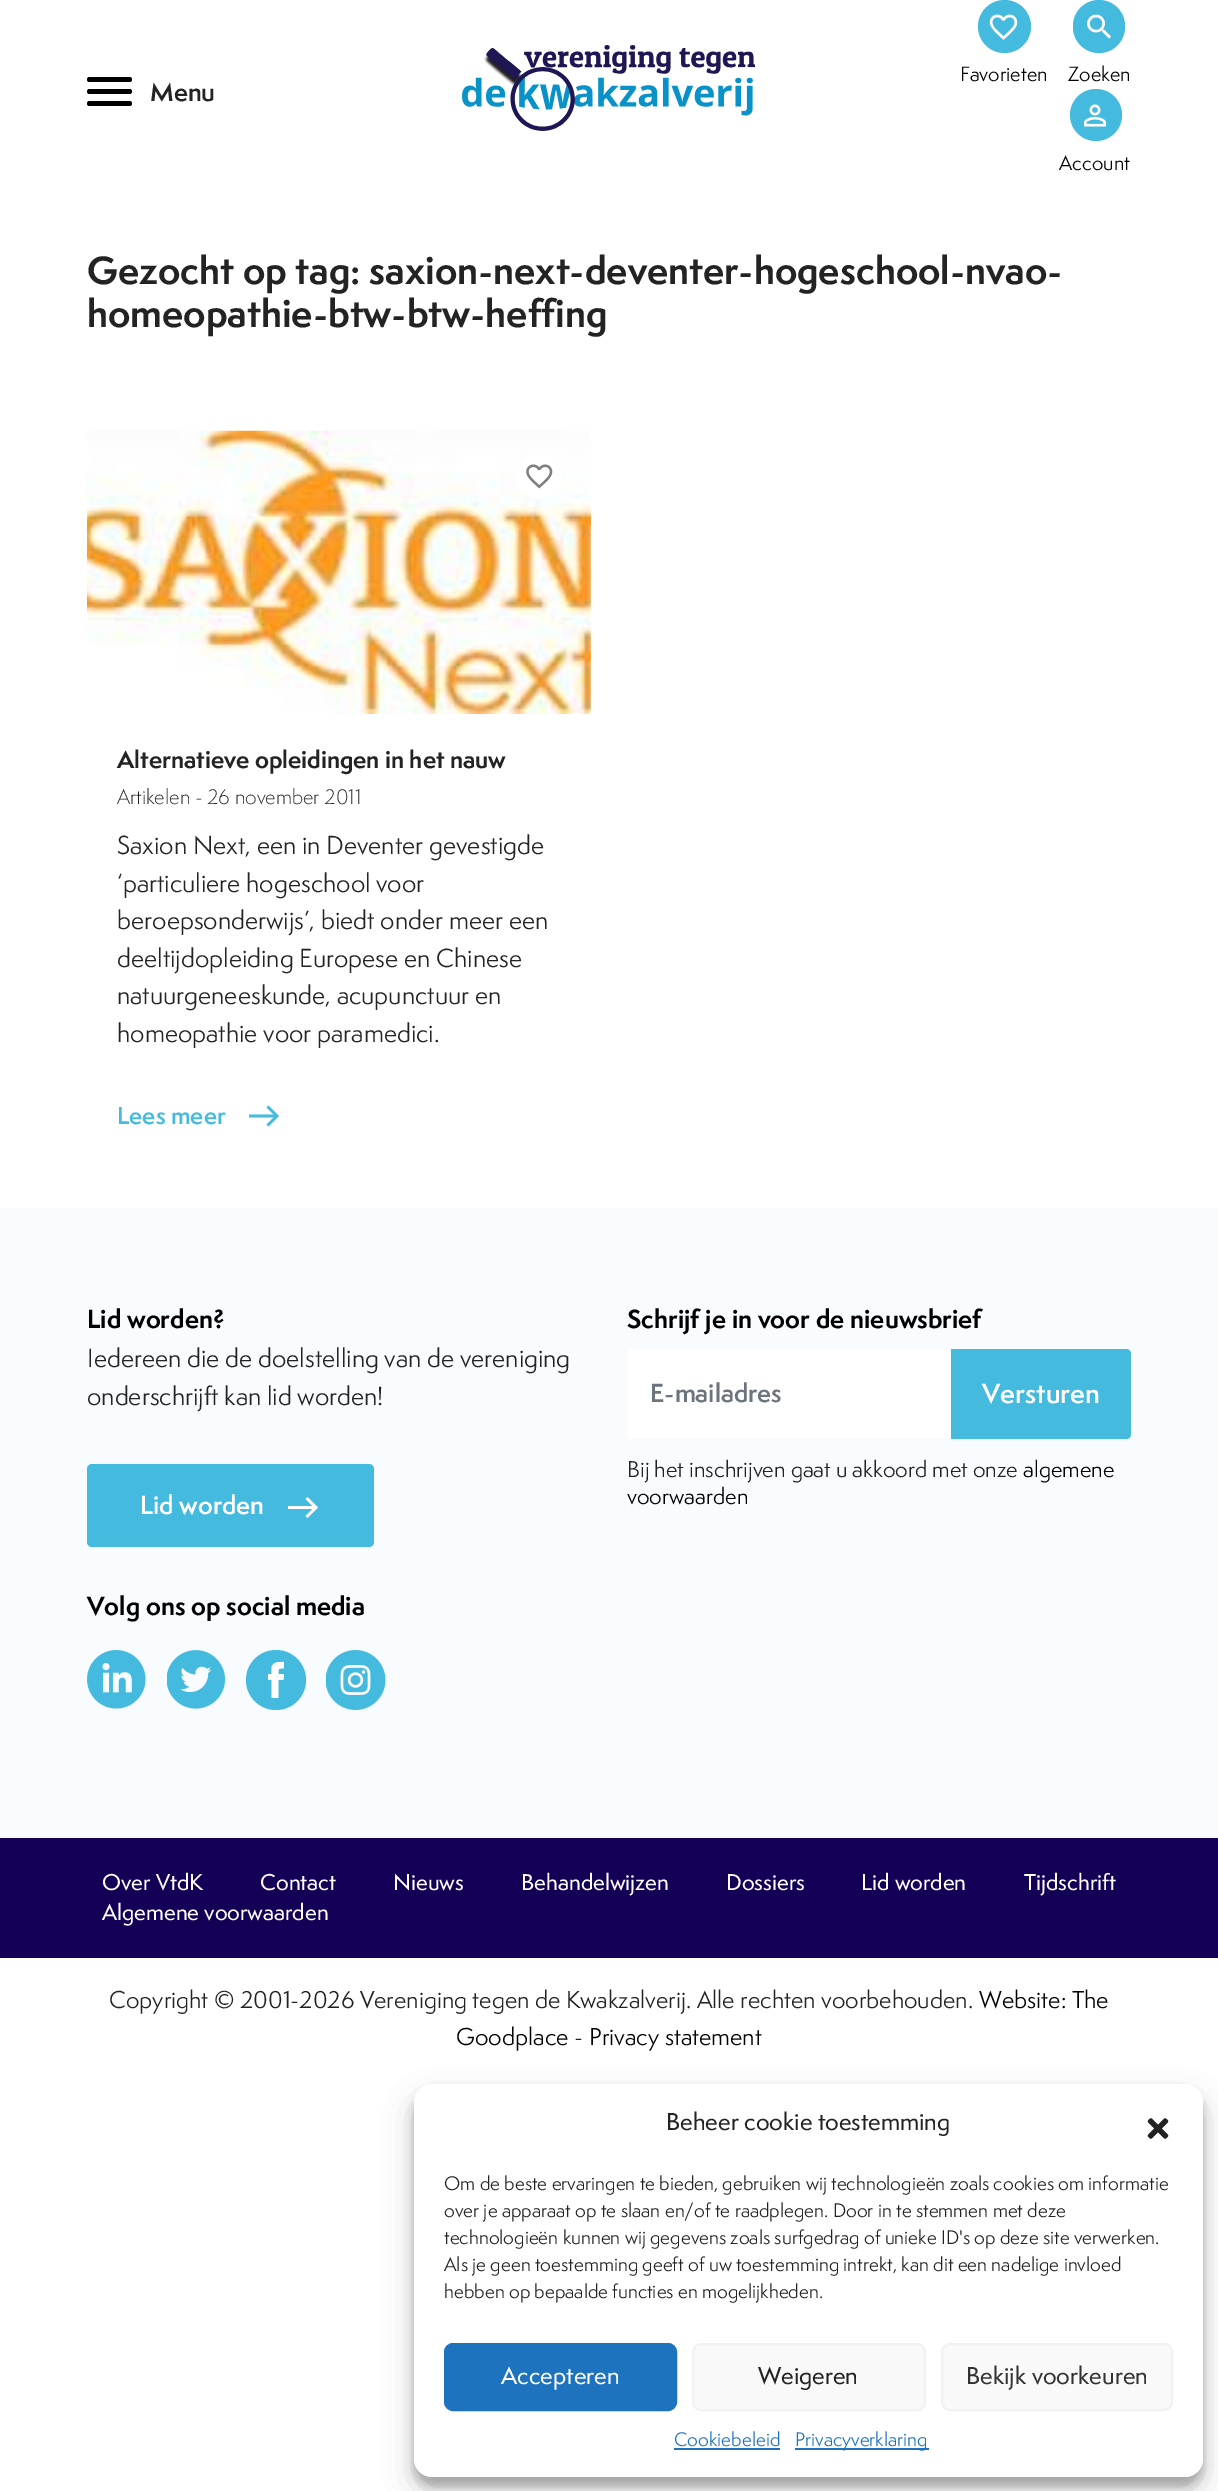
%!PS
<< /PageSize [1218 2491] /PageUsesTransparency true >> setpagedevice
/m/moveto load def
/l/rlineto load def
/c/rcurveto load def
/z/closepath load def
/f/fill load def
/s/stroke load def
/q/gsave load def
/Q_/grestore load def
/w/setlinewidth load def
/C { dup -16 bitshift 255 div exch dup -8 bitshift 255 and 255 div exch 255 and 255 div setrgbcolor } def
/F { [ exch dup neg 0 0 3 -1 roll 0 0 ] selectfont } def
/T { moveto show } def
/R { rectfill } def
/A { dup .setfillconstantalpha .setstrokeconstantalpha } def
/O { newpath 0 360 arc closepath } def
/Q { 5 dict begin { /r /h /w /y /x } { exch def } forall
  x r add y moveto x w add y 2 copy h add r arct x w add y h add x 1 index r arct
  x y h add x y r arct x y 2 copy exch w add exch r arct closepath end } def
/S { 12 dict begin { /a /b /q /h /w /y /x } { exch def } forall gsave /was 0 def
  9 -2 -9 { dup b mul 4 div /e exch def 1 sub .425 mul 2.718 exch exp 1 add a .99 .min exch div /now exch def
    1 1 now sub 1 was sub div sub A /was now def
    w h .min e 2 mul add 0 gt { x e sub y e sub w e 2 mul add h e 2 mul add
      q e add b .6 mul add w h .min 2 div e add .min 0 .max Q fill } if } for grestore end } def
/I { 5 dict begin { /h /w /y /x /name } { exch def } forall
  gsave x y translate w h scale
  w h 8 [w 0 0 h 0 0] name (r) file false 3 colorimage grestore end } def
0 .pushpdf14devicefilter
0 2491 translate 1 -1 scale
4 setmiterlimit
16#FFFFFF C
0 0 1218 2491 R
16#000000 C
87 101 45 5 2.5 Q f
87 77 45 5 2.5 Q f
87 89 45 5 2.5 Q f
/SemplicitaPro-SemiBold 24 F
16#232323 C
(Menu) 150 101 T
(1.rgb) 462 45 294 86 I
16#45BADF C
1004.5 26.5 26.5 O f
(2.rgb) 989 14 29 26 I
/SemplicitaPro-Regular 19 F
16#000000 C
(Favorieten) 960 81 T
16#45BADF C
1073 0 52 53 26 Q f
(3.rgb) 1087 14 25 25 I
16#000000 C
(Zoeken) 1068 81 T
16#45BADF C
1096 115 26 O f
(4.rgb) 1083 104 24 23 I
16#000000 C
(Account) 1059 170 T
/SemplicitaPro-Bold 36 F
16#232323 C
(Gezocht op tag: saxion-next-deventer-hogeschool-nvao-) 87 284 T
(homeopathie-btw-btw-heffing) 87 327 T
(5.rgb) 87 430 504 284 I
16#FFFFFF C
538.5 475.5 22.5 O f
(6.rgb) 526 464 27 25 I
/SemplicitaPro-Bold 22.5 F
16#232323 C
(Alternatieve opleidingen in het nauw) 117 768 T
/SemplicitaPro-Light 19.5 F
(Artikelen - 26 november 2011) 117 804 T
/SemplicitaPro-Regular 24 F
(Saxion Next, een in Deventer gevestigde) 117 854 T
(‘particuliere hogeschool voor) 117 892 T
(beroepsonderwijs’, biedt onder meer een) 117 929 T
(deeltijdopleiding Europese en Chinese) 117 967 T
(natuurgeneeskunde, acupunctuur en) 117 1004 T
(homeopathie voor paramedici.) 117 1042 T
/SemplicitaPro-SemiBold 22.5 F
16#45BADF C
(Lees meer) 117 1124 T
268.5 1105.5 m -2 2 l 7 7 l -24.5 0 l 0 3 l 24.5 0 l -7 7 l 2 2 l 10.5 -10.5 l z f
16#F8FCFE C
0 1208 1218 630 R
/SemplicitaPro-Bold 24 F
16#000000 C
(Lid worden?) 87 1328 T
/SemplicitaPro-Regular 24 F
16#232323 C
(Iedereen die de doelstelling van de vereniging) 87 1367 T
(onderschrijft kan lid worden!) 87 1405 T
16#45BADF C
87 1464 287 83 5 Q f
/SemplicitaPro-SemiBold 24 F
16#FFFFFF C
(Lid worden) 140 1514 T
307.5 1497 m -2 2 l 7 7 l -24.5 0 l 0 3 l 24.5 0 l -7 7 l 2 2 l 10.5 -10.5 l z f
/SemplicitaPro-Bold 24 F
16#000000 C
(Schrijf je in voor de nieuwsbrief) 627 1328 T
16#FFFFFF C
627 1349 504 90 6 Q f
/SemplicitaPro-SemiBold 24 F
16#6C757D C
(E-mailadres) 650 1402 T
16#45BADF C
951 1349 m 175 0 l 3 0 5 2 5 5 c 0 80 l 0 3 -2 5 -5 5 c -175 0 l z f
/SemplicitaPro-SemiBold 25.5 F
16#FFFFFF C
(Versturen) 982 1403 T
/SemplicitaPro-Regular 21 F
16#232323 C
(Bij het inschrijven gaat u akkoord met onze) 627 1477 T
16#000000 C
(algemene) 1023 1477 T
(voorwaarden) 627 1504 T
/SemplicitaPro-Bold 24 F
(Volg ons op social media) 87 1615 T
(7.rgb) 87 1650 59 59 I
(8.rgb) 167 1650 59 59 I
16#45BADF C
276 1680 30 O f
16#FFFFFF C
271.5 1698 m 7 0 l 0 -18 l 5 0 l .5 -6 l -5.5 0 l 0 -6 -.5 -5.5 5.5 -5.5 c 0 -6.5 l -4.5 0 -11.5 -.5 -12.5 5.5 c 0 6.5 l -3.5 0 l 0 6 l 3.5 0 l z f
(9.rgb) 326 1650 60 60 I
16#130056 C
0 1838 1218 120 R
/SemplicitaPro-Medium 21 F
16#FFFFFF C
(Over VtdK) 102 1890 T
(Contact) 260 1890 T
(Nieuws) 393 1890 T
(Behandelwijzen) 521 1890 T
(Dossiers) 726 1890 T
(Lid worden) 861 1890 T
(Tijdschrift) 1024 1890 T
(Algemene voorwaarden) 102 1920 T
/SemplicitaPro-Regular 22.5 F
16#232323 C
(Copyright © 2001-2026 Vereniging tegen de Kwakzalverij. Alle rechten voorbehouden.) 109 2008 T
16#000000 C
(Website: The) 979 2008 T
(Goodplace) 456 2045 T
16#232323 C
(-) 574 2045 T
16#000000 C
(Privacy statement) 589 2045 T
414 2093 789 393 18 4.5 .23 S
414 2099 789 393 18 15 .19 S
16#FFFFFF C
414 2084 789 393 18 Q f
/SemplicitaPro-Medium 22.5 F
16#232323 C
(Beheer cookie toestemming) 666 2130 T
(10.rgb) 1147 2118 22 21 I
/SemplicitaPro-Regular 18 F
(Om de beste ervaringen te bieden, gebruiken wij technologieën zoals cookies om informatie) 444 2190 T
(over je apparaat op te slaan en/of te raadplegen. Door in te stemmen met deze) 444 2217 T
(technologieën kunnen wij gegevens zoals surfgedrag of unieke ID's op deze site verwerken.) 444 2244 T
(Als je geen toestemming geeft of uw toestemming intrekt, kan dit een nadelige invloed) 444 2271 T
(hebben op bepaalde functies en mogelijkheden.) 444 2298 T
16#1E73BE C
445 2344 231 66 8 Q q f Q_
2 w
s
/SemplicitaPro-Medium 22.5 F
16#FFFFFF C
(Accepteren) 501 2384 T
16#F9F9F9 C
693 2344 232 66 8 Q q f Q_
16#F2F2F2 C
s
16#232323 C
(Weigeren) 758 2384 T
16#F9F9F9 C
942 2344 230 66 8 Q q f Q_
16#F2F2F2 C
s
16#333333 C
(Bekijk voorkeuren) 966 2384 T
/SemplicitaPro-Regular 18 F
16#1E73BE C
(Cookiebeleid) 674 2446 T
674 2448 106 2 R
795 2448 134 2 R
(Privacyverklaring) 795 2446 T
.poppdf14devicefilter showpage
